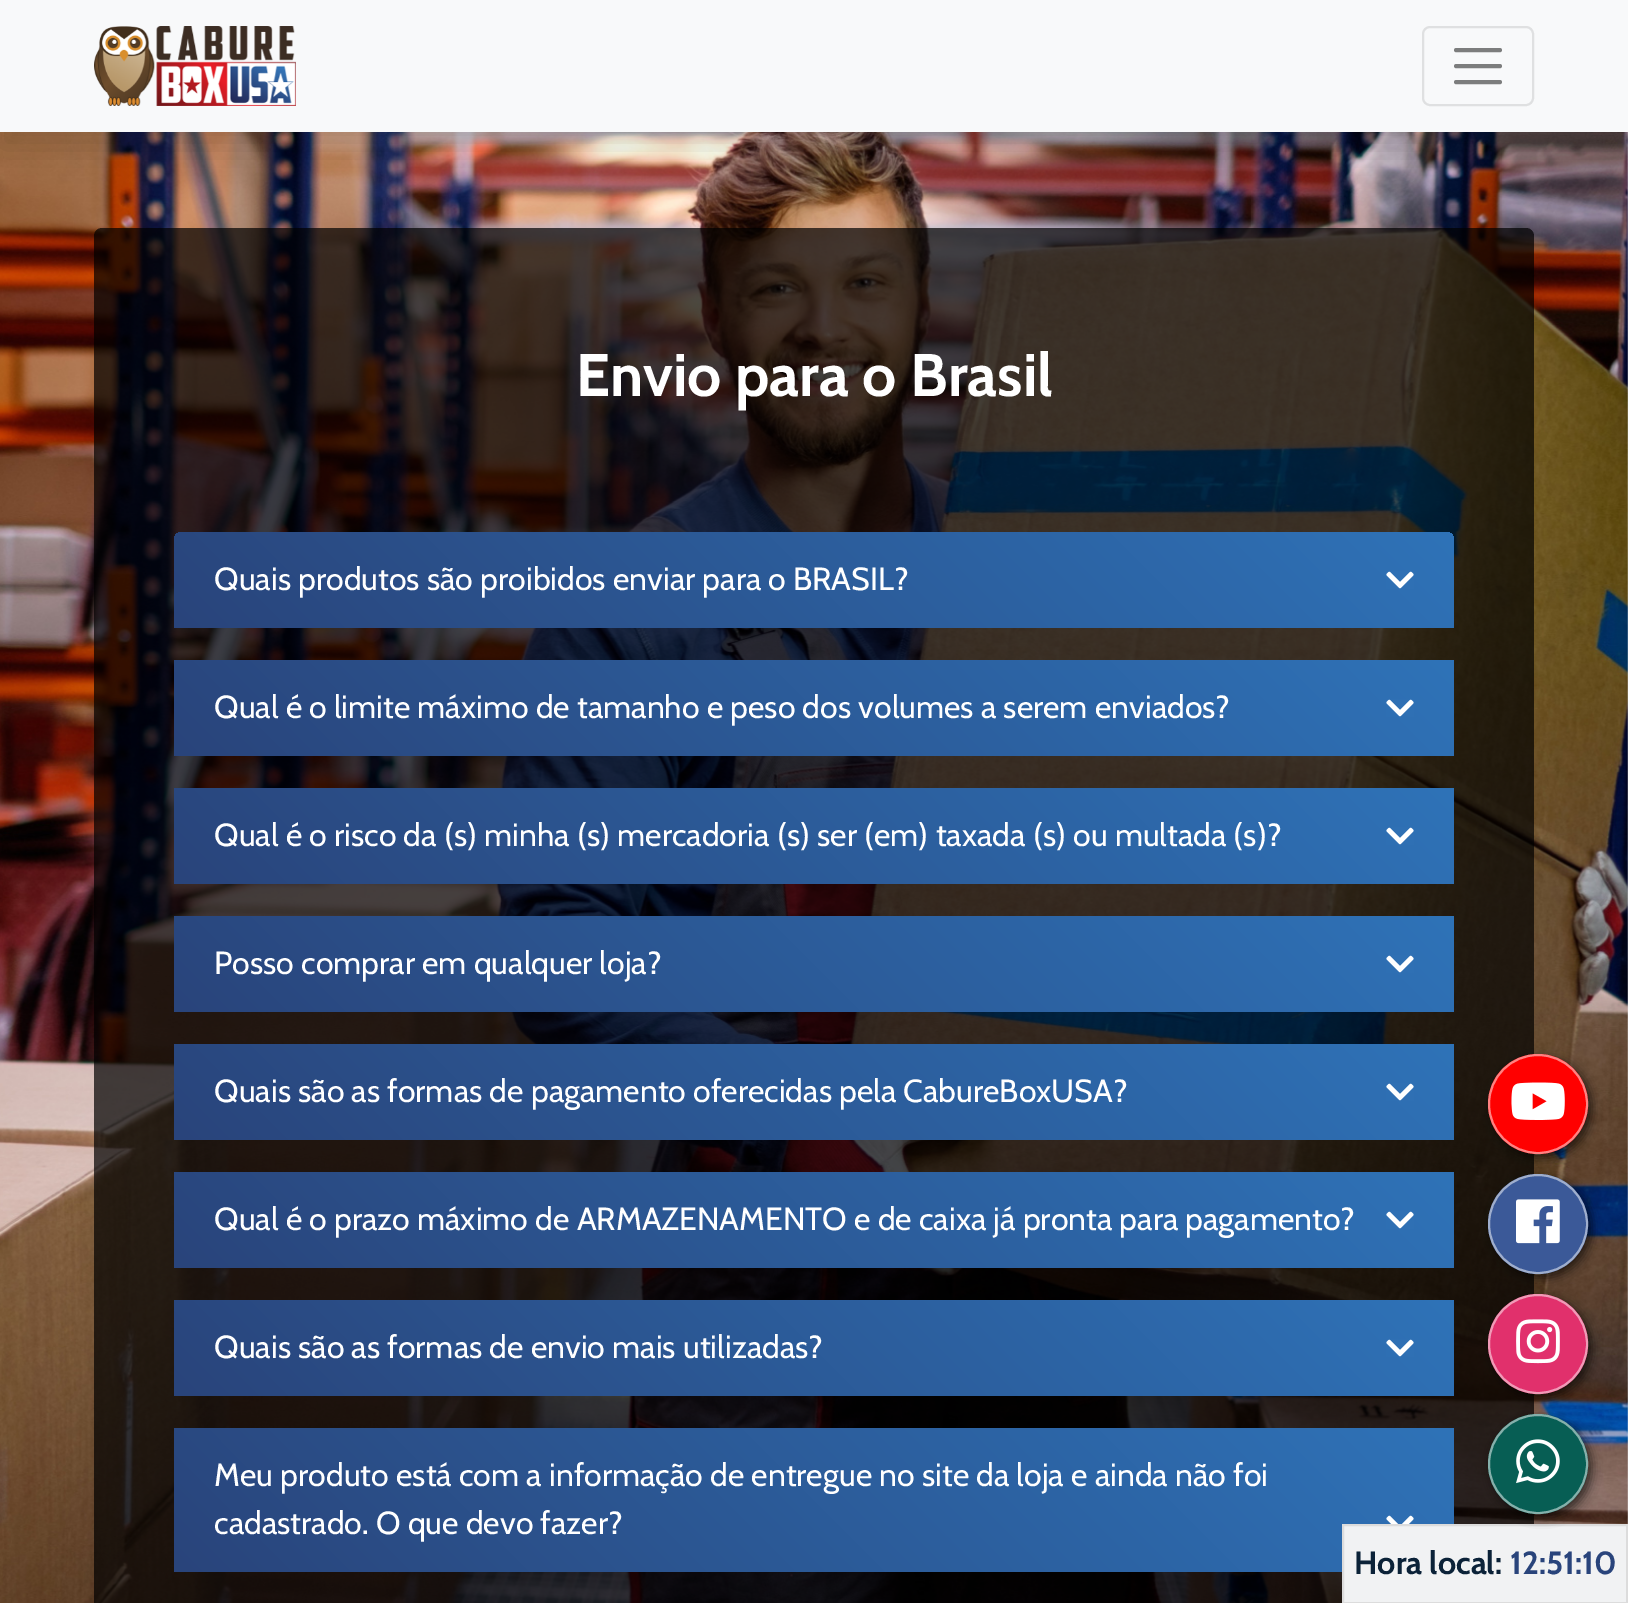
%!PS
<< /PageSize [1628 1603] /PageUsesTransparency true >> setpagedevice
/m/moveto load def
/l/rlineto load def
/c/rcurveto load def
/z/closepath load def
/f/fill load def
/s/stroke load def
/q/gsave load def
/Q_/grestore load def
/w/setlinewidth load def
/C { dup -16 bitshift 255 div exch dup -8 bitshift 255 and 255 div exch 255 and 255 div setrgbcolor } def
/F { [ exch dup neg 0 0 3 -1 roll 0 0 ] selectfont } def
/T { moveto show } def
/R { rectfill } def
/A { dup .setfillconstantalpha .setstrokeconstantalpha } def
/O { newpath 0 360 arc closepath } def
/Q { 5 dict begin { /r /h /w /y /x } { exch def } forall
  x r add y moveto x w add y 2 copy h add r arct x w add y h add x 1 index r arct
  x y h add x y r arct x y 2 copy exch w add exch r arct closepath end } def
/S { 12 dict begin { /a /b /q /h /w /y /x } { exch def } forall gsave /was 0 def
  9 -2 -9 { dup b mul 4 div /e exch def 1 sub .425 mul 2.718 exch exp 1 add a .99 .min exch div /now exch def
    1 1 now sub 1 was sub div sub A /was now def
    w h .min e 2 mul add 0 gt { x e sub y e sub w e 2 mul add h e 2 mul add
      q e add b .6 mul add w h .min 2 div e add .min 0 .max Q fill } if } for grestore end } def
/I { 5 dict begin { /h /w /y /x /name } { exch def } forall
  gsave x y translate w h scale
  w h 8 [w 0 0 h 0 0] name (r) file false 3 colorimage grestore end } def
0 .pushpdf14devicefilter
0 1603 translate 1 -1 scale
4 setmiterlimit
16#FFFFFF C
0 0 1628 1603 R
(2.rgb) 0 132 1628 1471 I
16#000000 C
0 16 1628 132 0 16 .15 S
16#F8F9FA C
0 0 1628 132 R
(1.rgb) 94 26 202 80 I
16#DFE0E1 C
2 w
1423 27 110 78 7 Q s
16#7C7D7D C
4 w
1 setlinecap
1456 50 m 44 0 l 1456 66 m 44 0 l 1456 82 m 44 0 l s
0.7 A
16#000000 C
94 228 1440 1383 8 Q f
/Cabin-Bold 60 F
1 A
16#FFFFFF C
(Envio para o Brasil) 576 396 T
q 182 532 m 1264 0 l 4.5 0 8 3.5 8 8 c 0 88 l -1280 0 l 0 -88 l 0 -4.5 3.5 -8 8 -8 c z clip newpath
<< /ShadingType 2 /ColorSpace /DeviceRGB /Coords [470 924 1158 236] /Extend [true true] /Function << /FunctionType 2 /Domain [0 1] /C0 [.161 .267 .482] /C1 [.184 .451 .722] /N 1 >> >> shfill Q_
/Cabin-Regular 32 F
(Quais produtos são proibidos enviar para o BRASIL?) 214 590 T
(3.rgb) 1386 571 28 18 I
q 174 660 m 1280 0 l 0 96 l -1280 0 l z clip newpath
<< /ShadingType 2 /ColorSpace /DeviceRGB /Coords [470 1052 1158 364] /Extend [true true] /Function << /FunctionType 2 /Domain [0 1] /C0 [.161 .267 .482] /C1 [.184 .451 .722] /N 1 >> >> shfill Q_
(Qual é o limite máximo de tamanho e peso dos volumes a serem enviados?) 214 718 T
(3.rgb) 1386 699 28 18 I
q 174 788 m 1280 0 l 0 96 l -1280 0 l z clip newpath
<< /ShadingType 2 /ColorSpace /DeviceRGB /Coords [470 1180 1158 492] /Extend [true true] /Function << /FunctionType 2 /Domain [0 1] /C0 [.161 .267 .482] /C1 [.184 .451 .722] /N 1 >> >> shfill Q_
(Qual é o risco da \(s\) minha \(s\) mercadoria \(s\) ser \(em\) taxada \(s\) ou multada \(s\)?) 214 846 T
(3.rgb) 1386 827 28 18 I
q 174 916 m 1280 0 l 0 96 l -1280 0 l z clip newpath
<< /ShadingType 2 /ColorSpace /DeviceRGB /Coords [470 1308 1158 620] /Extend [true true] /Function << /FunctionType 2 /Domain [0 1] /C0 [.161 .267 .482] /C1 [.184 .451 .722] /N 1 >> >> shfill Q_
(Posso comprar em qualquer loja?) 214 974 T
(3.rgb) 1386 955 28 18 I
q 174 1044 m 1280 0 l 0 96 l -1280 0 l z clip newpath
<< /ShadingType 2 /ColorSpace /DeviceRGB /Coords [470 1436 1158 748] /Extend [true true] /Function << /FunctionType 2 /Domain [0 1] /C0 [.161 .267 .482] /C1 [.184 .451 .722] /N 1 >> >> shfill Q_
(Quais são as formas de pagamento oferecidas pela CabureBoxUSA?) 214 1102 T
(3.rgb) 1386 1083 28 18 I
q 174 1172 m 1280 0 l 0 96 l -1280 0 l z clip newpath
<< /ShadingType 2 /ColorSpace /DeviceRGB /Coords [470 1564 1158 876] /Extend [true true] /Function << /FunctionType 2 /Domain [0 1] /C0 [.161 .267 .482] /C1 [.184 .451 .722] /N 1 >> >> shfill Q_
(Qual é o prazo máximo de ARMAZENAMENTO e de caixa já pronta para pagamento?) 214 1230 T
(3.rgb) 1386 1211 28 18 I
q 174 1300 m 1280 0 l 0 96 l -1280 0 l z clip newpath
<< /ShadingType 2 /ColorSpace /DeviceRGB /Coords [470 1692 1158 1004] /Extend [true true] /Function << /FunctionType 2 /Domain [0 1] /C0 [.161 .267 .482] /C1 [.184 .451 .722] /N 1 >> >> shfill Q_
(Quais são as formas de envio mais utilizadas?) 214 1358 T
(3.rgb) 1386 1339 28 18 I
q 174 1428 m 1280 0 l 0 144 l -1280 0 l z clip newpath
<< /ShadingType 2 /ColorSpace /DeviceRGB /Coords [458 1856 1170 1144] /Extend [true true] /Function << /FunctionType 2 /Domain [0 1] /C0 [.161 .267 .482] /C1 [.184 .451 .722] /N 1 >> >> shfill Q_
(Meu produto está com a informação de entregue no site da loja e ainda não foi) 214 1486 T
(cadastrado. O que devo fazer?) 214 1534 T
(4.rgb) 1386 1515 28 9 I
16#000000 C
1492 1058 100 100 50 5 .59 S
16#FF0000 C
1538 1104 50 O f
0.51 A
16#FFFFFF C
2 w
0 setlinecap
1538 1104 49 O s
1 A
(5.rgb) 1511 1082 54 38 I
16#000000 C
1492 1178 100 100 50 5 .59 S
16#3B5998 C
1538 1224 50 O f
0.51 A
16#FFFFFF C
1538 1224 49 O s
1 A
(6.rgb) 1516 1199 44 45 I
16#000000 C
1492 1298 100 100 50 5 .59 S
16#E1306C C
1538 1344 50 O f
0.51 A
16#FFFFFF C
1538 1344 49 O s
1 A
(7.rgb) 1516 1319 44 45 I
16#F1F2F3 C
1343 1525 m 284 0 l 0 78 l -284 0 l z q f Q_
16#DCDCDC C
s
16#000000 C
1492 1418 100 100 50 5 .59 S
16#075E54 C
1538 1464 50 O f
0.51 A
16#FFFFFF C
1538 1464 49 O s
1 A
(8.rgb) 1516 1439 44 45 I
/Cabin-Bold 32 F
16#0B2238 C
(Hora local:) 1354 1574 T
16#29447B C
(12:51:10) 1510 1574 T
.poppdf14devicefilter showpage
